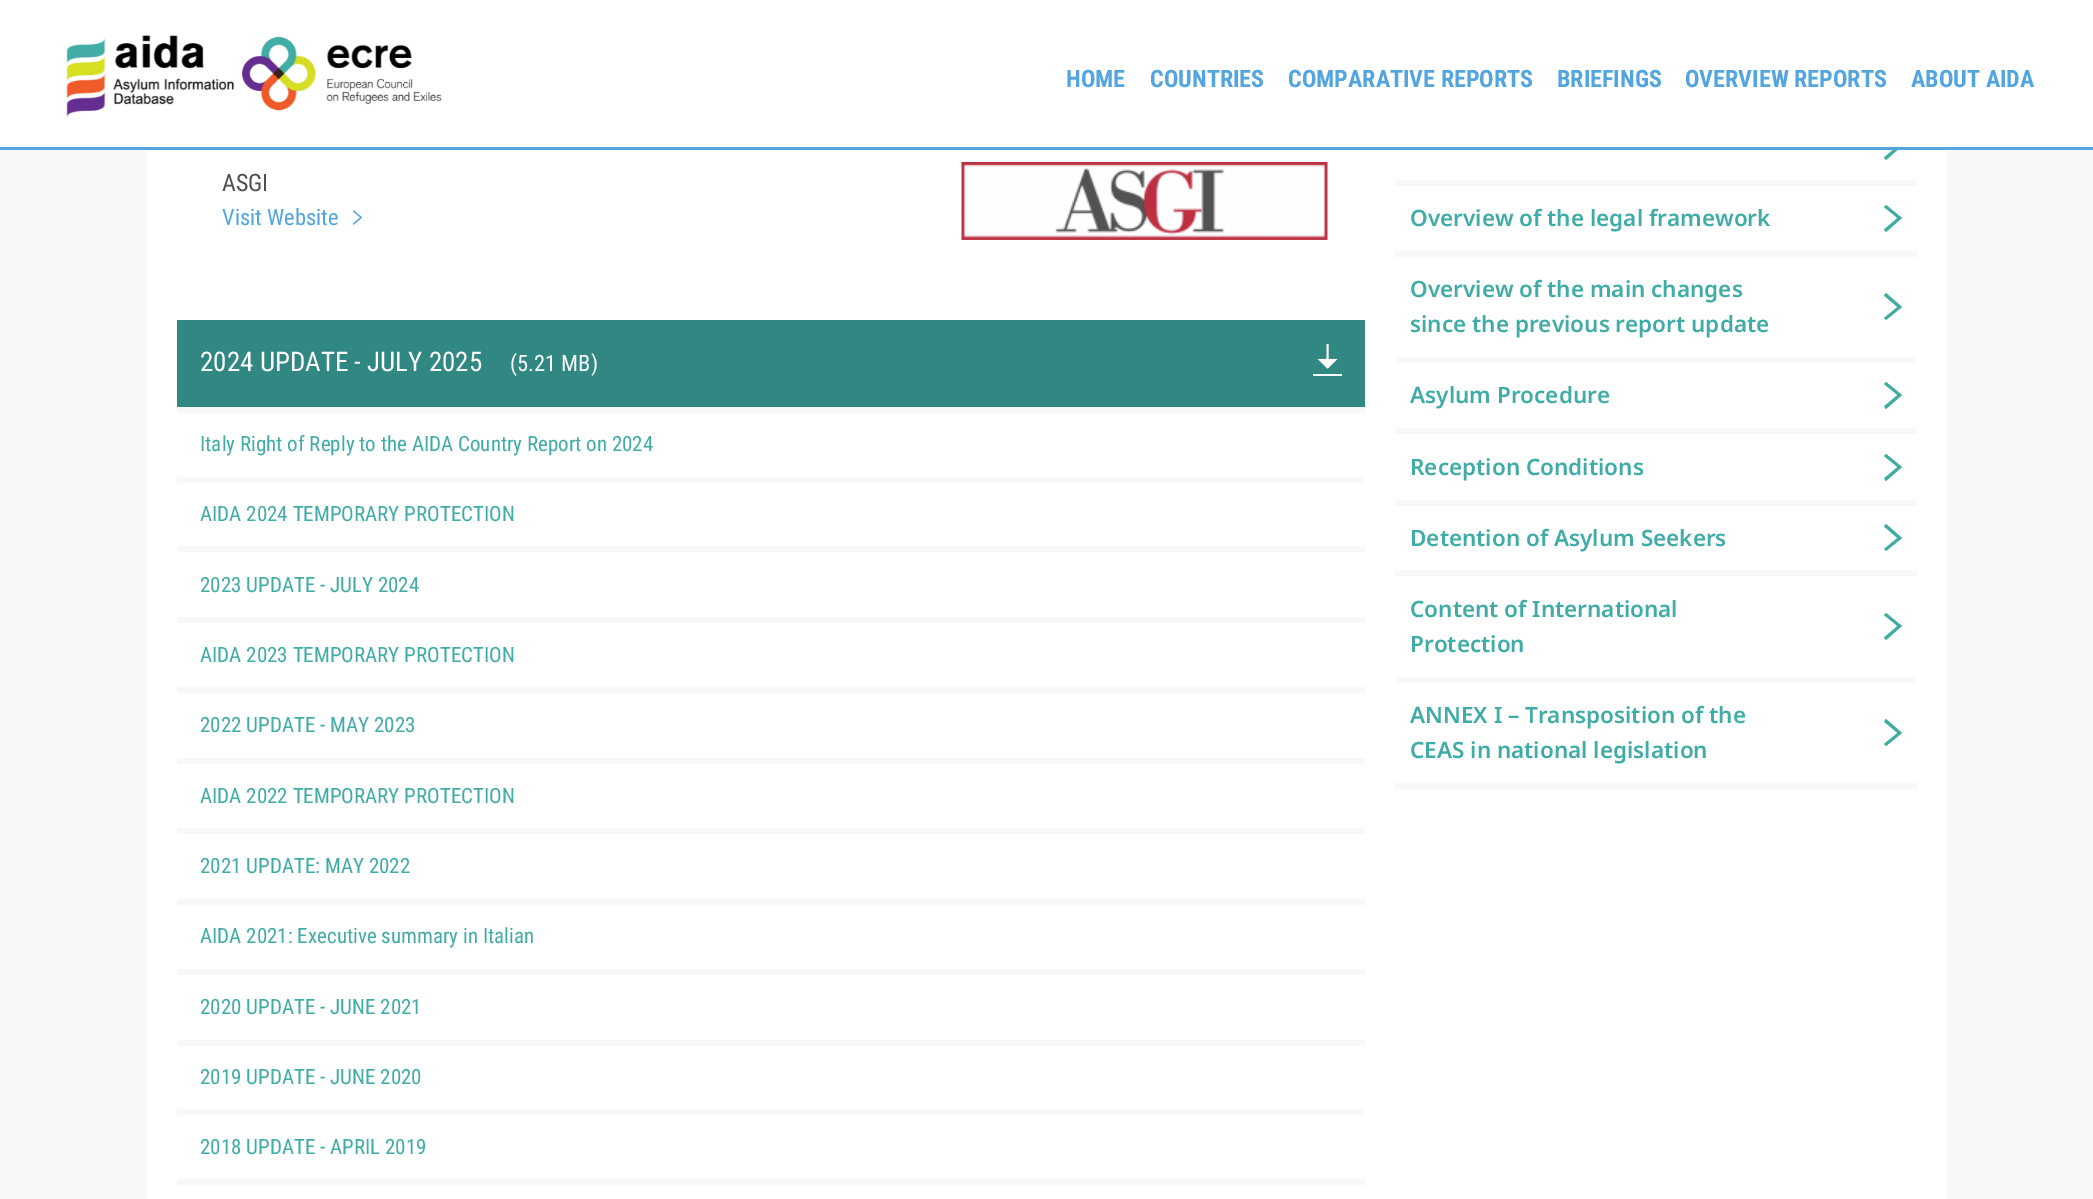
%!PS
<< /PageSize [2093 1199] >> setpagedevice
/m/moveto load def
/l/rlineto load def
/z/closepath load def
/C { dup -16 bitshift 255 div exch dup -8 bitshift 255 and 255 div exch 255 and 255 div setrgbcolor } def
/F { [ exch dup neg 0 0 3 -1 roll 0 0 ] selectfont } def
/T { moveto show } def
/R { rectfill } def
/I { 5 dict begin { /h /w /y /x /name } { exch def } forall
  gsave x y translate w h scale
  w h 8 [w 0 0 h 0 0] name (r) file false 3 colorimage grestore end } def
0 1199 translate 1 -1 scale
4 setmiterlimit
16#F8F8F8 C
0 0 2093 1199 R
16#FFFFFF C
147 150 1800 1049 R
16#40ABA0 C
1897.5 146 m -13.5 11.5 l 2 2.5 l 16 -14 l -16 -13 l -2 2 l z eofill
16#FFFFFF C
0 0 2093 147 R
16#52A5DF C
0 147 2093 3 R
(1.rgb) 66 35 376 83 I
/RobotoCondensed-Bold 24 F
(HOME) 1066 87 T
(COUNTRIES) 1150 87 T
(COMPARATIVE REPORTS) 1288 87 T
(BRIEFINGS) 1557 87 T
(OVERVIEW REPORTS) 1685 87 T
(ABOUT AIDA) 1911 87 T
/RobotoCondensed-Regular 24 F
16#4E4E4E C
(ASGI) 222 191 T
/RobotoCondensed-Regular 22.5 F
16#52A5DF C
(Visit Website) 222 225 T
(2.rgb) 353 210 9 15 I
(3.rgb) 961 162 367 78 I
16#318782 C
177 320 1188 87 R
16#F8F8F8 C
177 407 1188 6 R
/RobotoCondensed-Regular 27 F
16#FFFFFF C
(2024 UPDATE - JULY 2025) 200 371 T
/RobotoCondensed-Regular 22.5 F
(\(5.21 MB\)) 510 371 T
(4.rgb) 1313 344 29 32 I
16#F8F8F8 C
177 477 1188 6 R
/RobotoCondensed-Regular 21 F
16#40ACA7 C
(Italy Right of Reply to the AIDA Country Report on 2024) 200 451 T
16#F8F8F8 C
177 546 1188 6 R
16#40ACA7 C
(AIDA 2024 TEMPORARY PROTECTION) 200 521 T
16#F8F8F8 C
177 617 1188 6 R
16#40ACA7 C
(2023 UPDATE - JULY 2024) 200 592 T
16#F8F8F8 C
177 687 1188 6 R
16#40ACA7 C
(AIDA 2023 TEMPORARY PROTECTION) 200 662 T
16#F8F8F8 C
177 758 1188 6 R
16#40ACA7 C
(2022 UPDATE - MAY 2023) 200 732 T
16#F8F8F8 C
177 828 1188 6 R
16#40ACA7 C
(AIDA 2022 TEMPORARY PROTECTION) 200 803 T
16#F8F8F8 C
177 899 1188 6 R
16#40ACA7 C
(2021 UPDATE: MAY 2022) 200 873 T
16#F8F8F8 C
177 969 1188 6 R
16#40ACA7 C
(AIDA 2021: Executive summary in Italian) 200 943 T
16#F8F8F8 C
177 1040 1188 6 R
16#40ACA7 C
(2020 UPDATE - JUNE 2021) 200 1014 T
16#F8F8F8 C
177 1109 1188 6 R
16#40ACA7 C
(2019 UPDATE - JUNE 2020) 200 1084 T
16#F8F8F8 C
177 1179 1188 6 R
16#40ACA7 C
(2018 UPDATE - APRIL 2019) 200 1154 T
16#F8F8F8 C
1395 180 522 6 R
1395 251 522 6 R
/NotoSans-SemiBold 22.5 F
16#40ACA7 C
(Overview of the legal framework) 1410 226 T
16#40ABA0 C
1897.5 218 m -13.5 11.5 l 2 2.5 l 16 -14 l -16 -13 l -2 2 l z eofill
16#F8F8F8 C
1395 357 522 6 R
16#40ACA7 C
(Overview of the main changes) 1410 297 T
16#40ABA0 C
1897.5 307 m -13.5 11 l 2 2 l 16 -13 l -16 -14 l -2 2.5 l z eofill
16#40ACA7 C
(since the previous report update) 1410 332 T
16#F8F8F8 C
1395 428 522 6 R
16#40ACA7 C
(Asylum Procedure) 1410 403 T
16#40ABA0 C
1897.5 395 m -13.5 11.5 l 2 2.5 l 16 -14 l -16 -13 l -2 2 l z eofill
16#F8F8F8 C
1395 500 522 6 R
16#40ACA7 C
(Reception Conditions) 1410 475 T
16#40ABA0 C
1897.5 467 m -13.5 11.5 l 2 2.5 l 16 -14 l -16 -13 l -2 2 l z eofill
16#F8F8F8 C
1395 570 522 6 R
16#40ACA7 C
(Detention of Asylum Seekers) 1410 546 T
16#40ABA0 C
1897.5 538 m -13.5 11 l 2 2 l 16 -13 l -16 -14 l -2 2.5 l z eofill
16#F8F8F8 C
1395 677 522 6 R
16#40ACA7 C
(Content of International) 1410 617 T
16#40ABA0 C
1897.5 626 m -13.5 11.5 l 2 2.5 l 16 -14 l -16 -13 l -2 2 l z eofill
16#40ACA7 C
(Protection) 1410 652 T
16#F8F8F8 C
1395 783 522 6 R
16#40ACA7 C
(ANNEX I – Transposition of the) 1410 723 T
16#40ABA0 C
1897.5 733 m -13.5 11 l 2 2 l 16 -13 l -16 -14 l -2 2.5 l z eofill
16#40ACA7 C
(CEAS in national legislation) 1410 758 T
showpage
